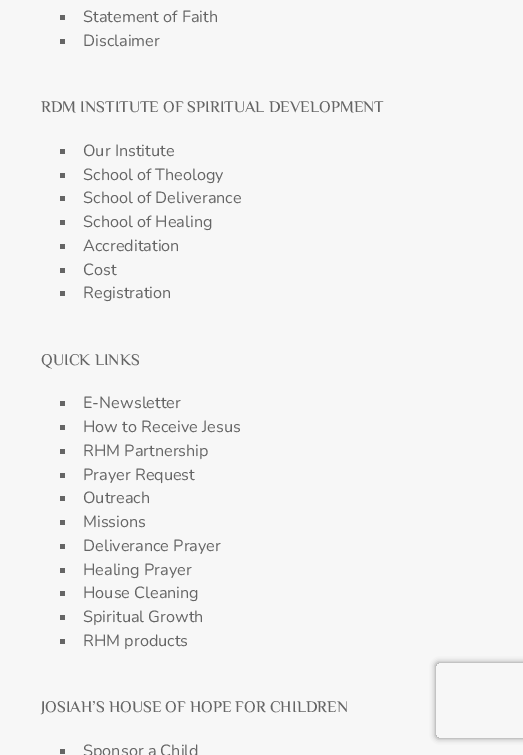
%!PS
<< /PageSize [523 755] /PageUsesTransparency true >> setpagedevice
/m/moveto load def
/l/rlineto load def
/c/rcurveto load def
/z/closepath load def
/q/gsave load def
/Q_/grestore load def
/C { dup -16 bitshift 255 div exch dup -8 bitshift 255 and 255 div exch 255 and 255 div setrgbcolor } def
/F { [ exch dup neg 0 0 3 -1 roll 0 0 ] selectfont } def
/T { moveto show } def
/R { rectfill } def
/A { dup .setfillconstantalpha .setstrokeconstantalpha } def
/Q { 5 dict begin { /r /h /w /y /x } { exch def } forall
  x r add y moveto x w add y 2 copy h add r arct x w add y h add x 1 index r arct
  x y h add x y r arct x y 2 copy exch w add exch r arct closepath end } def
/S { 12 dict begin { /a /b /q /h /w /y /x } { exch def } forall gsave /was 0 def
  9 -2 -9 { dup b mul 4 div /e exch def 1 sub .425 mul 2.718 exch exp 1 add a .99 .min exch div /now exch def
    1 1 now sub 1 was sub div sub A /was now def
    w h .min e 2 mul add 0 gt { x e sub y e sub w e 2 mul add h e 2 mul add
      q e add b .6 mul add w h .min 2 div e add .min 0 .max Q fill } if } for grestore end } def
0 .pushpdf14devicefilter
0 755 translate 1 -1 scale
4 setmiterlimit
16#F7F7F7 C
0 0 523 755 R
16#656565 C
60 15 5 5 R
/Nunito-Regular 16.25 F
(Statement of Faith) 83 22 T
60 39 5 5 R
(Disclaimer) 83 46 T
/ElMessiri-Medium 16.25 F
(RDM INSTITUTE OF SPIRITUAL DEVELOPMENT) 41 112 T
60 149 5 5 R
/Nunito-Regular 16.25 F
(Our Institute) 83 156 T
60 173 5 5 R
(School of Theology) 83 180 T
60 196 5 5 R
(School of Deliverance) 83 203 T
60 220 5 5 R
(School of Healing) 83 227 T
60 244 5 5 R
(Accreditation) 83 251 T
60 268 5 5 R
(Cost) 83 275 T
60 291 5 5 R
(Registration) 83 298 T
/ElMessiri-Medium 16.25 F
(QUICK LINKS) 41 365 T
60 401 5 5 R
/Nunito-Regular 16.25 F
(E-Newsletter) 83 408 T
60 425 5 5 R
(How to Receive Jesus) 83 432 T
60 449 5 5 R
(RHM Partnership) 83 456 T
60 473 5 5 R
(Prayer Request) 83 480 T
60 496 5 5 R
(Outreach) 83 503 T
60 520 5 5 R
(Missions) 83 527 T
60 544 5 5 R
(Deliverance Prayer) 83 551 T
60 568 5 5 R
(Healing Prayer) 83 575 T
60 591 5 5 R
(House Cleaning) 83 598 T
60 615 5 5 R
(Spiritual Growth) 83 622 T
60 639 5 5 R
(RHM products) 83 646 T
/ElMessiri-Medium 16.25 F
(JOSIAH’S HOUSE OF HOPE FOR CHILDREN) 41 712 T
60 749 5 5 R
/Nunito-Regular 16.25 F
(Sponsor a Child) 83 756 T
q
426 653 m 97 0 l 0 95 l -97 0 l z 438.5 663 m 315 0 l 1.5 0 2.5 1 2.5 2.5 c 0 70 l 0 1.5 -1 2.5 -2.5 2.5 c -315 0 l -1.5 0 -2.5 -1 -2.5 -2.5 c 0 -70 l 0 -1.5 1 -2.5 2.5 -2.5 c z eoclip newpath
16#808080 C
436 663 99 75 2.5 3 1 S
Q_
.poppdf14devicefilter showpage
